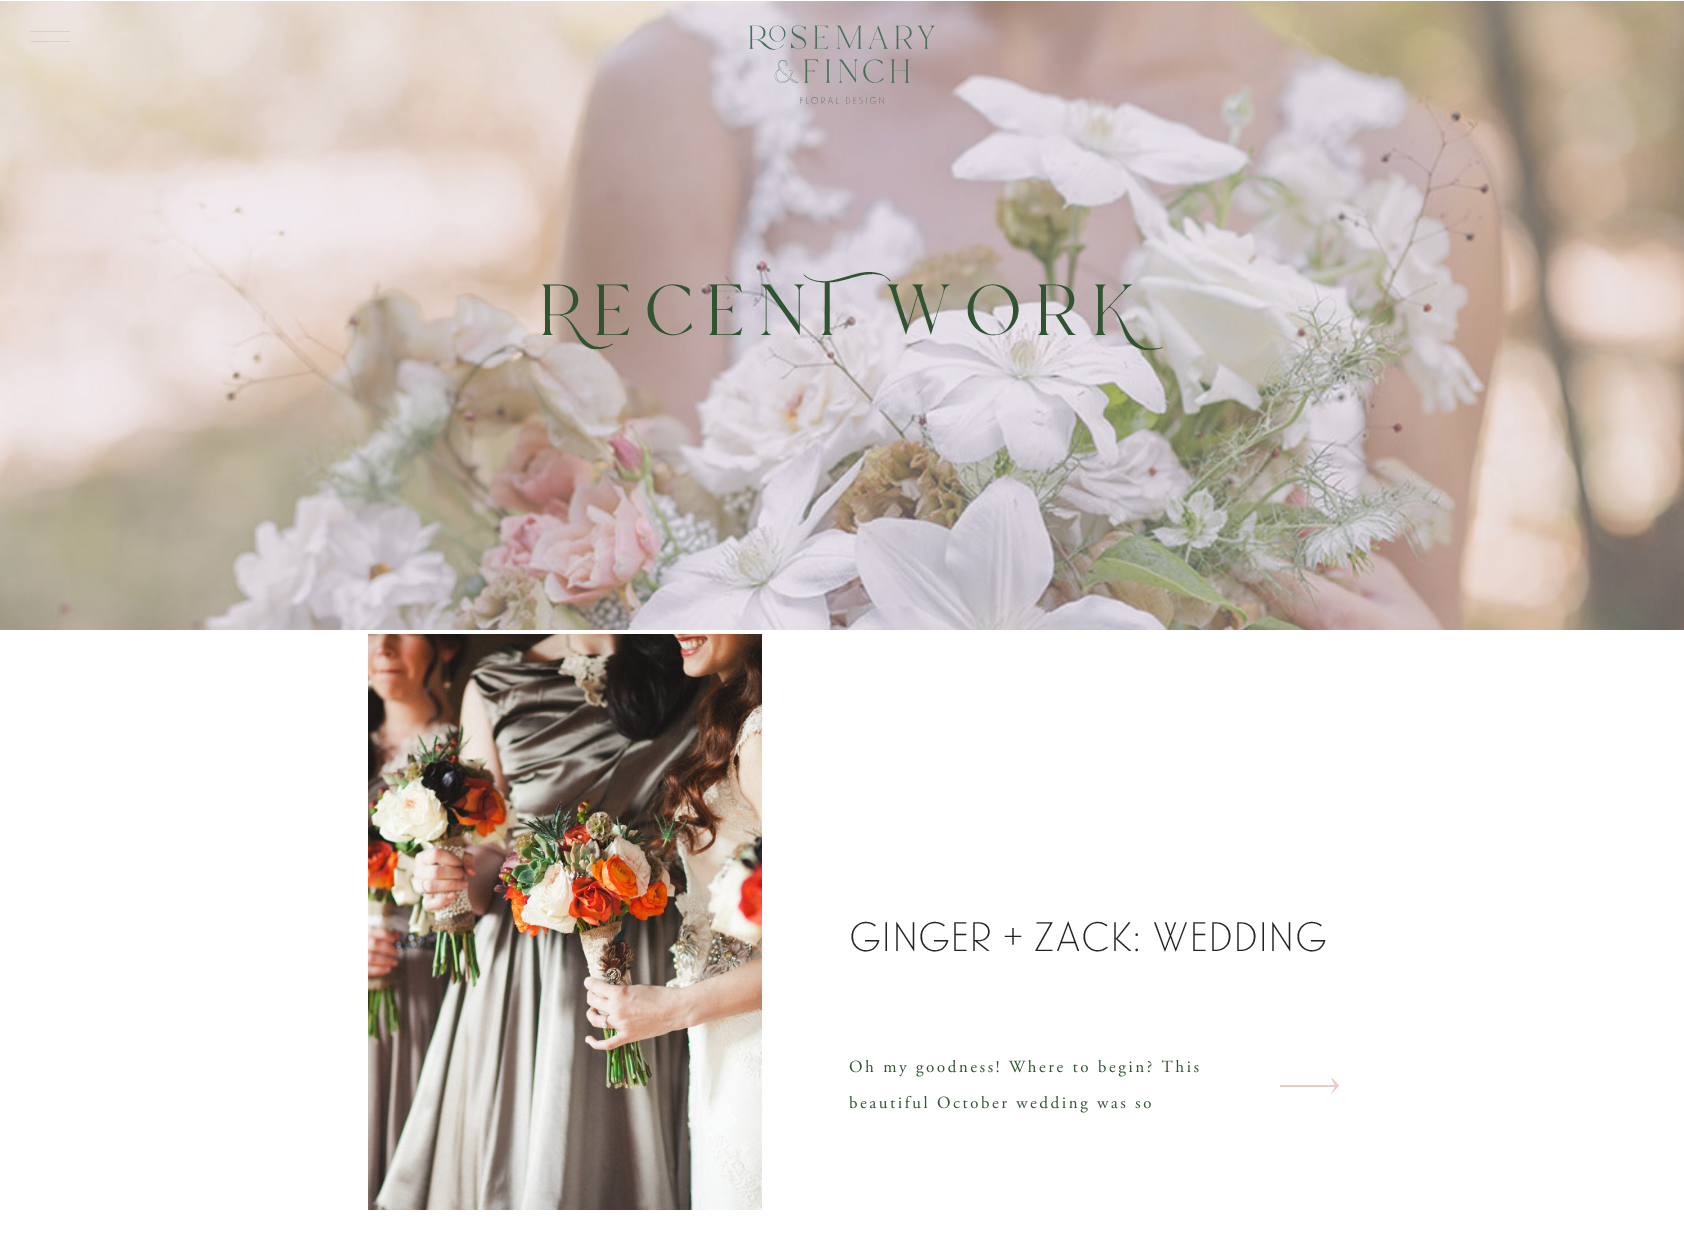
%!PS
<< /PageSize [1684 1241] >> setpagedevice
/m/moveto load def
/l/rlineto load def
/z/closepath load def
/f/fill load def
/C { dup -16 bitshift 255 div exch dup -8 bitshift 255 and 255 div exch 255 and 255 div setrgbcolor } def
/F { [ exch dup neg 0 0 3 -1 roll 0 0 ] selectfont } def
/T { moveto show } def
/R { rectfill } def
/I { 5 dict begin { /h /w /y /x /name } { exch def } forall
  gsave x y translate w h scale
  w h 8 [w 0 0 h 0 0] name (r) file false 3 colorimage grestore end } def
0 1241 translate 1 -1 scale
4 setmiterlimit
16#FFFFFF C
0 0 1684 1241 R
16#DDCAD8 C
0 1 1684 629 R
(2.rgb) 0 1 1684 629 I
30 31 40 1 R
30 41 40 1 R
(1.rgb) 749 25 186 79 I
/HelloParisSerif-Light 103 F
16#305431 C
538 335 m 10.25 0 (RecenT wOrK) ashow
(3.rgb) 368 634 394 576 I
/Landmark-Regular 40 F
16#232322 C
(ginger + zack: wedding) 849 951 T
(4.rgb) 849 1059 350 18 I
(5.rgb) 849 1095 302 18 I
16#E9CCC6 C
1331 1078 m 4 7 l -55 0 l 0 2 l 55 0 l -4 7 l 1 -1 l 7 -7 l -5 -6 l z f
showpage
